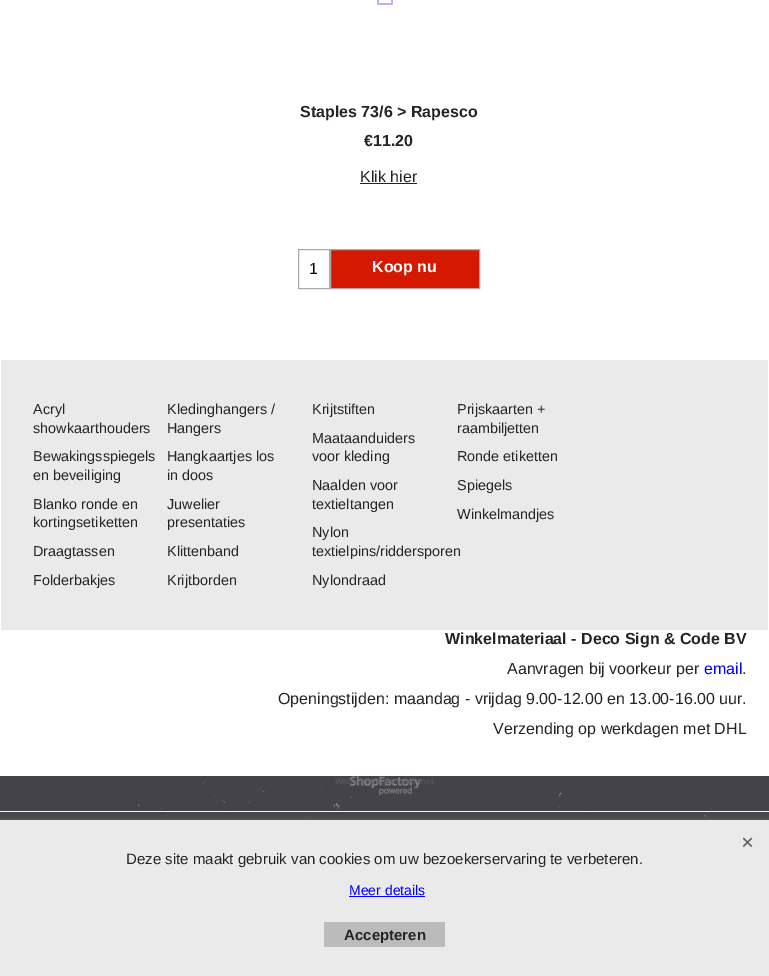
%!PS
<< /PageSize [769 976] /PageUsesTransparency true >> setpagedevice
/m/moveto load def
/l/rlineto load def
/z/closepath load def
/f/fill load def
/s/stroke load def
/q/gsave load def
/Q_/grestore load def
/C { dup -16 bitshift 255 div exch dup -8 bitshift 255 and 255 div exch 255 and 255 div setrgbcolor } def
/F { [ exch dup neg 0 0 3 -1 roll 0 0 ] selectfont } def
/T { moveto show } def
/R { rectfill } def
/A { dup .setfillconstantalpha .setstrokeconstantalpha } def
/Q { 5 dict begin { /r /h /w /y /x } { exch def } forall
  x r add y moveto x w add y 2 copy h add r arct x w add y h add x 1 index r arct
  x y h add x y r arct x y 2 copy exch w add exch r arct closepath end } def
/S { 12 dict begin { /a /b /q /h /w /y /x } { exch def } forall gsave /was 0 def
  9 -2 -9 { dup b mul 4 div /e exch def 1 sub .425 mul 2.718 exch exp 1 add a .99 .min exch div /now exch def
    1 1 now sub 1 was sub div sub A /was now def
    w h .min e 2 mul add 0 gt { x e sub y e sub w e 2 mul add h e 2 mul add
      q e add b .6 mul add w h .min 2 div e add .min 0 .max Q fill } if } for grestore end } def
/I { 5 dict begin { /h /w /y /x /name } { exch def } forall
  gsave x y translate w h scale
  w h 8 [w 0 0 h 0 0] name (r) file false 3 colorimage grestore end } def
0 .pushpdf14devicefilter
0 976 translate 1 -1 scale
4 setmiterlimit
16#FFFFFF C
0 0 769 976 R
(1.rgb) 0 776 769 44 I
(2.rgb) 377 0 16 5 I
/LiberationSans-Bold 16 F
16#242424 C
(Staples 73/6 > Rapesco) 300 117 T
(€11.20) 364 146 T
/LiberationSans-Regular 16 F
(Klik hier) 360 182 T
360 183 57 1 R
16#AAAAAA C
298.5 249.5 31 39 rectstroke
16#000000 C
(1) 309 274 T
16#D41900 C
330.5 249.5 m 149 0 l 0 39 l -149 0 l z q f Q_
16#AAAAAA C
s
/LiberationSans-Bold 16 F
16#FFFFFF C
(Koop nu) 372 272 T
16#EAEAEA C
1 360 767 270 R
/LiberationSans-Regular 14.4 F
16#242424 C
(Acryl) 33 414 T
(showkaarthouders) 33 433 T
(Bewakingsspiegels) 33 461 T
(en beveiliging) 33 480 T
(Blanko ronde en) 33 509 T
(kortingsetiketten) 33 527 T
(Draagtassen) 33 556 T
(Folderbakjes) 33 585 T
(Kledinghangers /) 167 414 T
(Hangers) 167 433 T
(Hangkaartjes los) 167 461 T
(in doos) 167 480 T
(Juwelier) 167 509 T
(presentaties) 167 527 T
(Klittenband) 167 556 T
(Krijtborden) 167 585 T
(Krijtstiften) 312 414 T
(Maataanduiders) 312 443 T
(voor kleding) 312 461 T
(Naalden voor) 312 490 T
(textieltangen) 312 509 T
(Nylon) 312 537 T
(textielpins/riddersporen) 312 556 T
(Nylondraad) 312 585 T
(Prijskaarten +) 457 414 T
(raambiljetten) 457 433 T
(Ronde etiketten) 457 461 T
(Spiegels) 457 490 T
(Winkelmandjes) 457 519 T
/LiberationSans-Bold 16 F
(Winkelmateriaal - Deco Sign & Code BV) 445 644 T
/LiberationSans-Regular 16 F
(Aanvragen bij voorkeur per) 507 674 T
16#0000FF C
(email) 704 674 T
16#242424 C
(.) 742 674 T
(Openingstijden: maandag - vrijdag 9.00-12.00 en 13.00-16.00 uur.) 278 704 T
(Verzending op werkdagen met DHL) 493 734 T
(3.rgb) 350 776 71 20 I
/LiberationSans-Regular 9 F
16#5A5A5D C
(Webwinkel gemaakt met) 335 784 T
16#FFFFFF C
0 811 769 1 R
16#666666 C
0 820 769 156 0 5 1 S
16#EAEAEA C
0 820 769 156 R
(4.rgb) 742 837 11 10 I
/LiberationSans-Regular 15 F
16#242424 C
(Deze site maakt gebruik van cookies om uw bezoekerservaring te verbeteren.) 126 864 T
/LiberationSans-Regular 14 F
16#0000FF C
(Meer details) 349 895 T
349 896 76 1 R
16#BBBBBB C
324 922 121 25 R
/LiberationSans-Bold 15 F
16#242424 C
(Accepteren) 344 940 T
.poppdf14devicefilter showpage
